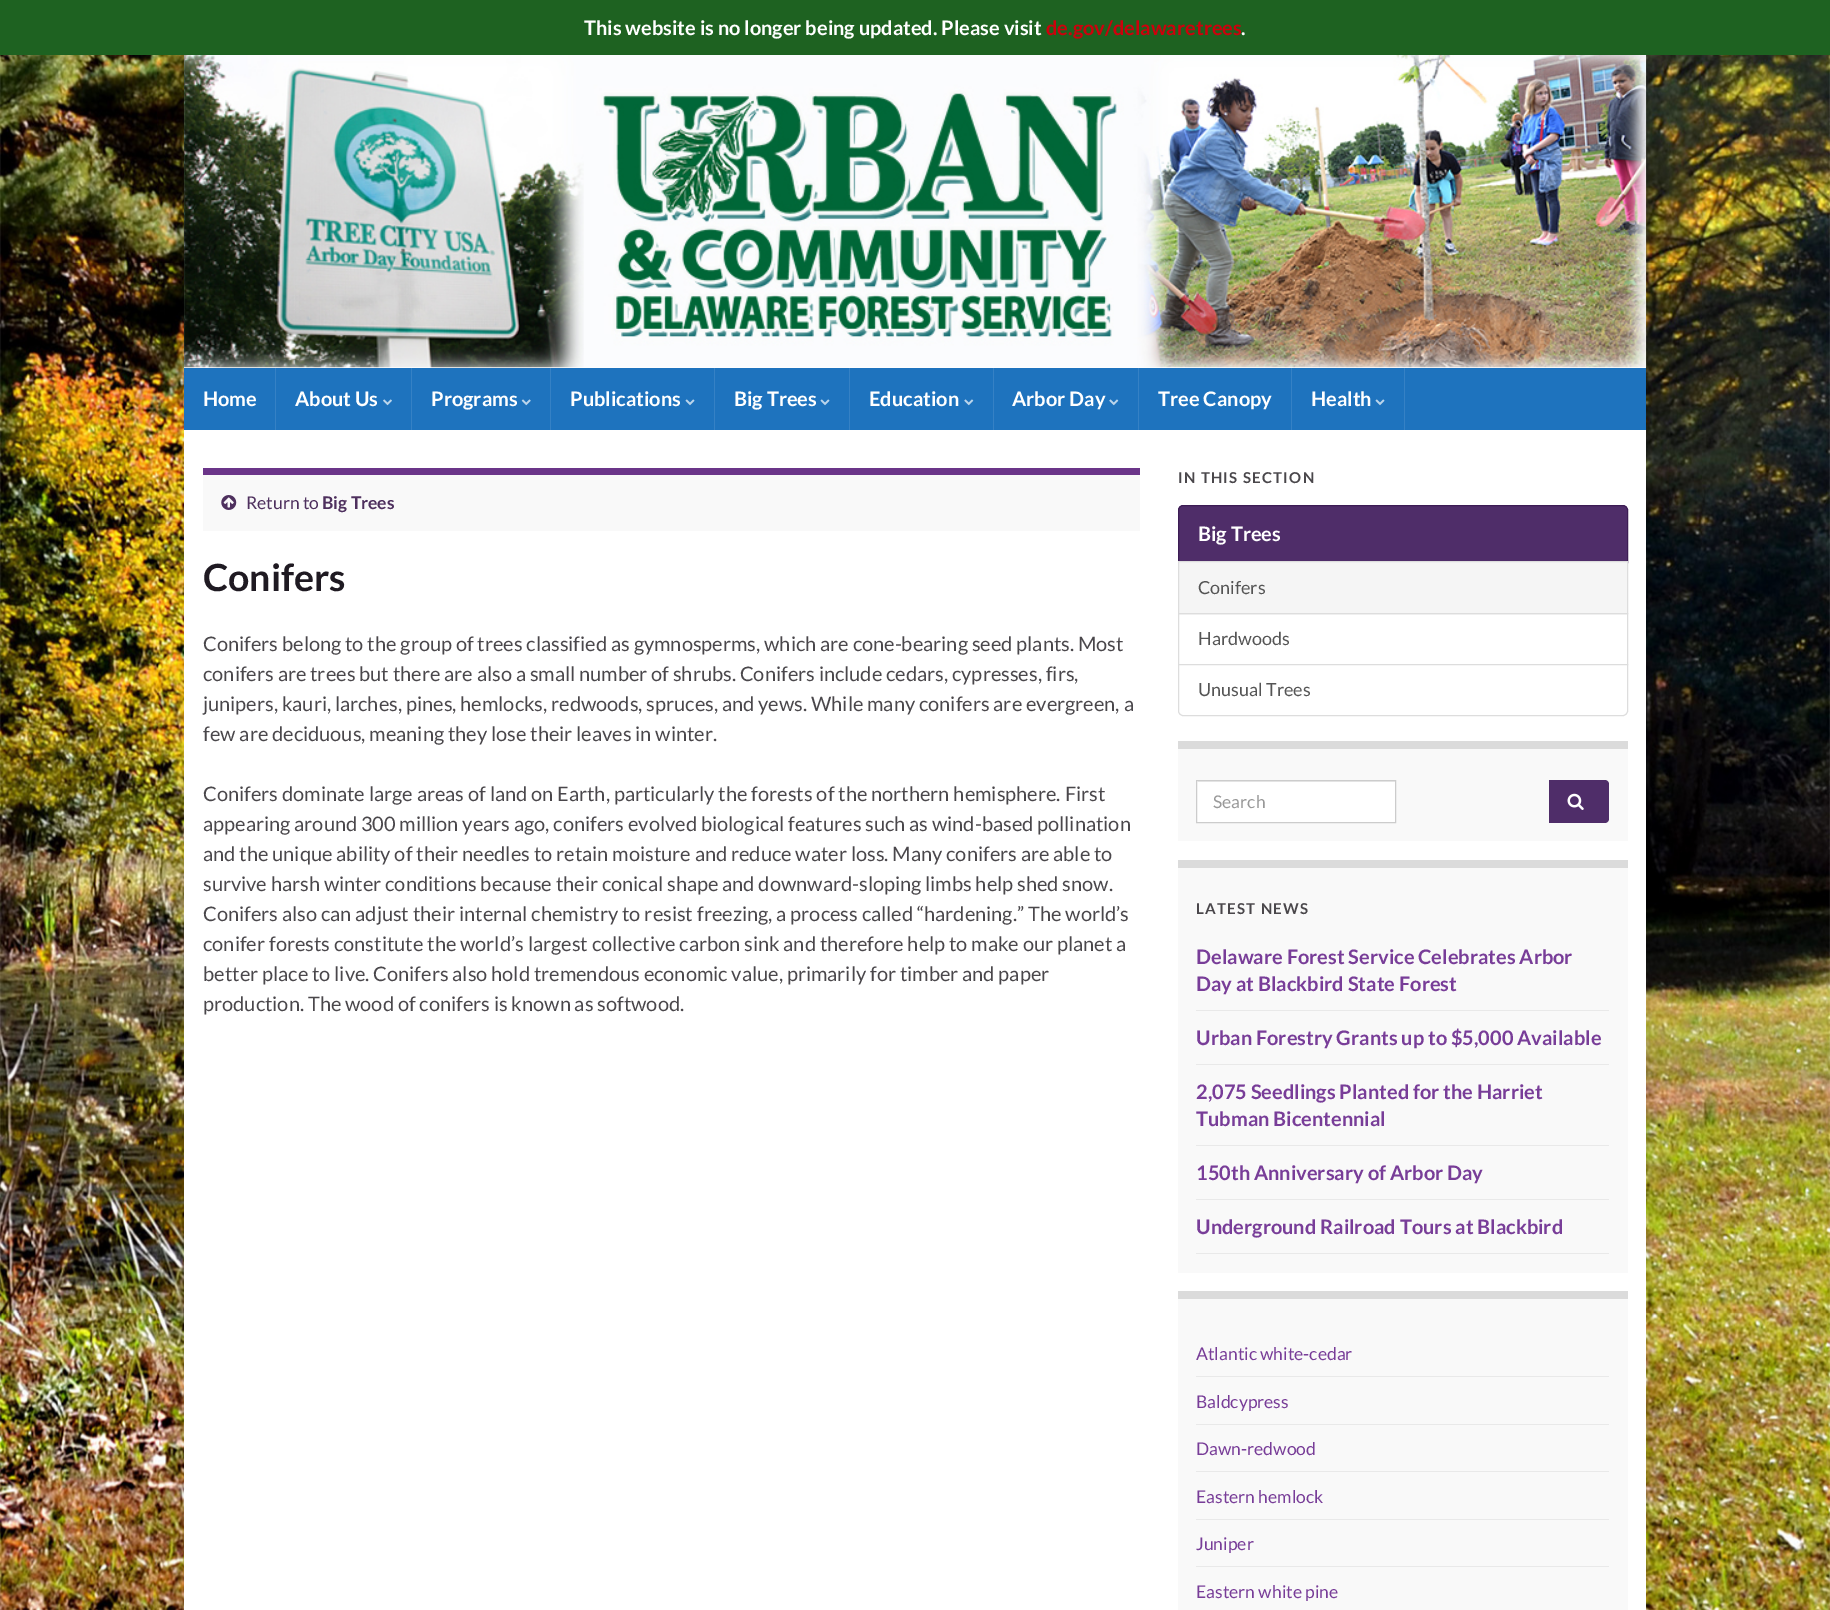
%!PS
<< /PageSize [1830 1610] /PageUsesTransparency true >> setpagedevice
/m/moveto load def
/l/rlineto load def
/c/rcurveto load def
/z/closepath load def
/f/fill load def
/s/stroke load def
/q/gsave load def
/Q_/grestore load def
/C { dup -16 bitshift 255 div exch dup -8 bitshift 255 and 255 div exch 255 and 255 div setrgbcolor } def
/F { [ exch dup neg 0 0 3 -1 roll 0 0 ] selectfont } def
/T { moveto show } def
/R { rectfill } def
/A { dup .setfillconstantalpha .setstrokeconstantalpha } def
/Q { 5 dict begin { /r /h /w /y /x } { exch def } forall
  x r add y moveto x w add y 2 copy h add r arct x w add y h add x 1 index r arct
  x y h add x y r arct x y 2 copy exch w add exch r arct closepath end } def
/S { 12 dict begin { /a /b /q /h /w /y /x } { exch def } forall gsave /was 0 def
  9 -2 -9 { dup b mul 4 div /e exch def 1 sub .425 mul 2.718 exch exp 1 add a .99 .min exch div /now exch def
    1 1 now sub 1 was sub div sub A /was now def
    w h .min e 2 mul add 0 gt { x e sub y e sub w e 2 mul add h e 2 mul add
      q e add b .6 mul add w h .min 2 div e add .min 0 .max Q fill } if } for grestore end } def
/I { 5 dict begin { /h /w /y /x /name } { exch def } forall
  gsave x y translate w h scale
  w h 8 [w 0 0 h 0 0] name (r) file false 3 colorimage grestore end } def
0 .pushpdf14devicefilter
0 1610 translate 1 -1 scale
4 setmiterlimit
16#FFFFFF C
0 0 1830 1610 R
(1.rgb) 0 55 1830 1555 I
16#000000 C
184 55 1462 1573 0 6 .1 S
16#1E6221 C
0 0 1830 55 R
/Lato-Bold 20 F
16#FFFFFF C
(This website is no longer being updated. Please visit) 584 35 T
16#CE000C C
(de.gov/delawaretrees) 1046 35 T
16#FFFFFF C
(.) 1241 35 T
184 367 1462 1 R
(2.rgb) 183 55 1464 313 I
16#1E73BE C
184 368 1462 62 R
16#3581C5 C
275 368 1 62 R
16#FFFFFF C
(Home) 203 406 T
16#3581C5 C
411 368 1 62 R
16#FFFFFF C
(About Us) 295 406 T
(3.rgb) 383 399 9 7 I
16#3581C5 C
550 368 1 62 R
16#FFFFFF C
(Programs) 431 406 T
(4.rgb) 521 399 10 7 I
16#3581C5 C
714 368 1 62 R
16#FFFFFF C
(Publications) 570 406 T
(5.rgb) 685 399 10 7 I
16#3581C5 C
849 368 1 62 R
16#FFFFFF C
(Big Trees) 734 406 T
(5.rgb) 820 399 10 7 I
16#3581C5 C
993 368 1 62 R
16#FFFFFF C
(Education) 869 406 T
(6.rgb) 964 399 10 7 I
16#3581C5 C
1138 368 1 62 R
16#FFFFFF C
(Arbor Day) 1012 406 T
(6.rgb) 1109 399 10 7 I
16#3581C5 C
1291 368 1 62 R
16#FFFFFF C
(Tree Canopy) 1158 406 T
16#3581C5 C
1404 368 1 62 R
16#FFFFFF C
(Health) 1311 406 T
(5.rgb) 1375 399 10 7 I
184 430 1462 1180 R
16#F9F9F9 C
203 475 937 56 R
16#6B3589 C
203 468 937 7 R
(7.rgb) 221 495 16 15 I
/Lato-Regular 17.5 F
16#4E305E C
(Return to) 246 509 T
/Lato-Bold 17.5 F
(Big Trees) 322 509 T
/Lato-Bold 37.5 F
16#1F1A22 C
(Conifers) 203 591 T
/Lato-Regular 20 F
16#4A474B C
(Conifers belong to the group of trees classified as gymnosperms, which are cone-bearing seed plants. Most) 203 651 T
(conifers are trees but there are also a small number of shrubs. Conifers include cedars, cypresses, firs,) 203 681 T
(junipers, kauri, larches, pines, hemlocks, redwoods, spruces, and yews. While many conifers are evergreen, a) 203 711 T
(few are deciduous, meaning they lose their leaves in winter.) 203 741 T
(Conifers dominate large areas of land on Earth, particularly the forests of the northern hemisphere. First) 203 801 T
(appearing around 300 million years ago, conifers evolved biological features such as wind-based pollination) 203 831 T
(and the unique ability of their needles to retain moisture and reduce water loss. Many conifers are able to) 203 861 T
(survive harsh winter conditions because their conical shape and downward-sloping limbs help shed snow.) 203 891 T
(Conifers also can adjust their internal chemistry to resist freezing, a process called “hardening.” The world’s) 203 921 T
(conifer forests constitute the world’s largest collective carbon sink and therefore help to make our planet a) 203 951 T
(better place to live. Conifers also hold tremendous economic value, primarily for timber and paper) 203 981 T
(production. The wood of conifers is known as softwood.) 203 1011 T
/Lato-Bold 15 F
1178 483 m 1.25 0 (IN THIS SECTION) ashow
16#4F2D69 C
1183 505.5 m 440 0 l 2.5 0 4.5 2 4.5 4.5 c 0 52.5 l -449 0 l 0 -52.5 l 0 -2.5 2 -4.5 4.5 -4.5 c z q f Q_
16#3C1C54 C
s
/Lato-Bold 20 F
16#FFFFFF C
(Big Trees) 1198 541 T
16#DDDDDD C
1178.5 613.5 449 51 rectstroke
16#F5F5F5 C
1178.5 561.5 m 449 0 l 0 52 l -449 0 l z q f Q_
16#DDDDDD C
s
/Lato-Regular 18 F
16#555555 C
(Conifers) 1198 594 T
(Hardwoods) 1198 645 T
16#FFFFFF C
1178.5 664.5 m 449 0 l 0 46.5 l 0 2.5 -2 4.5 -4.5 4.5 c -440 0 l -2.5 0 -4.5 -2 -4.5 -4.5 c z q f Q_
16#DDDDDD C
s
16#555555 C
(Unusual Trees) 1198 696 T
16#F9F9F9 C
1178 749 450 92 R
16#DBDBDB C
1178 741 450 8 R
16#FFFFFF C
1197 781 198 41 R
16#ECECEC C
1198 781 197 1 R
16#CCCCCC C
1196.5 780.5 199 42 rectstroke
/Lato-Regular 17.5 F
16#999999 C
(Search) 1213 808 T
16#4F2D69 C
1549 780 m 56 0 l 2 0 4 2 4 4 c 0 35 l 0 2 -2 4 -4 4 c -56 0 l z f
(8.rgb) 1567 793 17 17 I
16#F9F9F9 C
1178 868 450 405 R
16#DBDBDB C
1178 860 450 8 R
/Lato-Bold 15 F
16#4A474B C
1196 914 m 1.25 0 (LATEST NEWS) ashow
16#E9E9E9 C
1196 1010 413 1 R
/Lato-Bold 20 F
16#783D98 C
(Delaware Forest Service Celebrates Arbor) 1196 964 T
(Day at Blackbird State Forest) 1196 991 T
16#E9E9E9 C
1196 1064 413 1 R
16#783D98 C
(Urban Forestry Grants up to $5,000 Available) 1196 1045 T
16#E9E9E9 C
1196 1145 413 1 R
16#783D98 C
(2,075 Seedlings Planted for the Harriet) 1196 1099 T
(Tubman Bicentennial) 1196 1126 T
16#E9E9E9 C
1196 1199 413 1 R
16#783D98 C
(150th Anniversary of Arbor Day) 1196 1180 T
16#E9E9E9 C
1196 1253 413 1 R
16#783D98 C
(Underground Railroad Tours at Blackbird) 1196 1234 T
16#F9F9F9 C
1178 1299 450 311 R
16#DBDBDB C
1178 1291 450 8 R
16#E9E9E9 C
1196 1376 413 1 R
/Lato-Regular 17.5 F
16#783D98 C
(Atlantic white-cedar) 1196 1360 T
16#E9E9E9 C
1196 1424 413 1 R
16#783D98 C
(Baldcypress) 1196 1408 T
16#E9E9E9 C
1196 1471 413 1 R
16#783D98 C
(Dawn-redwood) 1196 1455 T
16#E9E9E9 C
1196 1519 413 1 R
16#783D98 C
(Eastern hemlock) 1196 1503 T
16#E9E9E9 C
1196 1566 413 1 R
16#783D98 C
(Juniper) 1196 1550 T
(Eastern white pine) 1196 1598 T
.poppdf14devicefilter showpage
